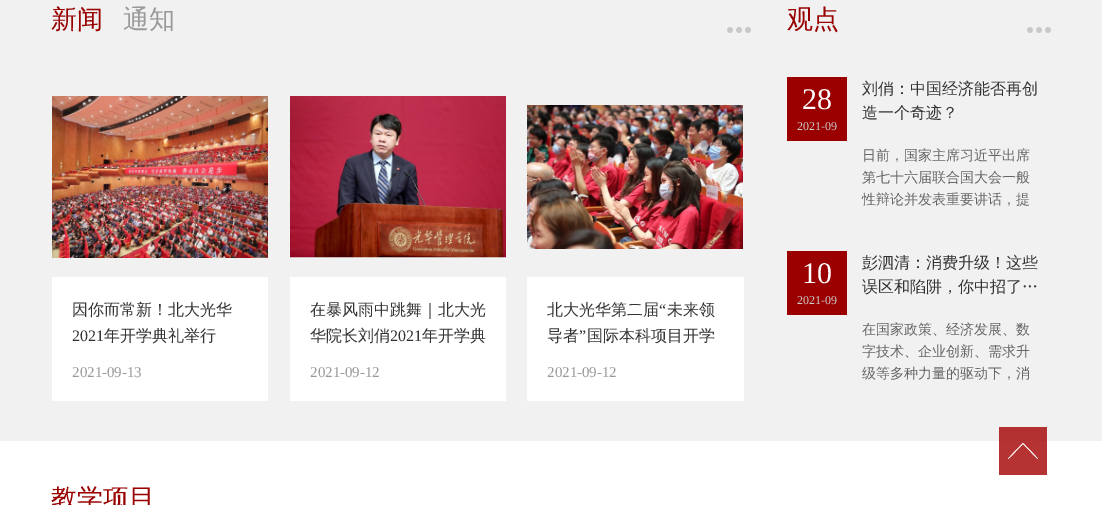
%!PS
<< /PageSize [1102 505] >> setpagedevice
/C { dup -16 bitshift 255 div exch dup -8 bitshift 255 and 255 div exch 255 and 255 div setrgbcolor } def
/F { [ exch dup neg 0 0 3 -1 roll 0 0 ] selectfont } def
/T { moveto show } def
/R { rectfill } def
/I { 5 dict begin { /h /w /y /x /name } { exch def } forall
  gsave x y translate w h scale
  w h 8 [w 0 0 h 0 0] name (r) file false 3 colorimage grestore end } def
0 505 translate 1 -1 scale
4 setmiterlimit
16#FFFFFF C
0 0 1102 505 R
16#F1F1F1 C
0 0 1102 441 R
/WenQuanYiZenHei-Medium 26 F
16#990000 C
(新闻) 51 28 T
(1.rgb) 727 27 24 6 I
16#999999 C
(通知) 123 28 T
(2.rgb) 52 96 216 162 I
16#FFFFFF C
52 277 216 124 R
/WenQuanYiZenHei-Medium 16 F
16#333333 C
(因你而常新！北大光华) 72 315 T
/LiberationSerif-Regular 16 F
(2021) 72 341 T
/WenQuanYiZenHei-Medium 16 F
(年开学典礼举行) 104 341 T
/LiberationSerif-Regular 15 F
16#999999 C
(2021-09-13) 72 377 T
(3.rgb) 290 96 216 162 I
16#FFFFFF C
290 277 216 124 R
/WenQuanYiZenHei-Medium 16 F
16#333333 C
(在暴风雨中跳舞｜北大光) 310 315 T
(华院长刘俏) 310 341 T
/LiberationSerif-Regular 16 F
(2021) 390 341 T
/WenQuanYiZenHei-Medium 16 F
(年开学典) 422 341 T
/LiberationSerif-Regular 15 F
16#999999 C
(2021-09-12) 310 377 T
(4.rgb) 527 105 216 144 I
16#FFFFFF C
527 277 217 124 R
/WenQuanYiZenHei-Medium 16 F
16#333333 C
(北大光华第二届) 547 315 T
/LiberationSerif-Regular 16 F
(“) 659 315 T
/WenQuanYiZenHei-Medium 16 F
(未来领) 667 315 T
(导者) 547 341 T
/LiberationSerif-Regular 16 F
(”) 579 341 T
/WenQuanYiZenHei-Medium 16 F
(国际本科项目开学) 587 341 T
/LiberationSerif-Regular 15 F
16#999999 C
(2021-09-12) 547 377 T
/WenQuanYiZenHei-Medium 26 F
16#990000 C
(观点) 787 28 T
(1.rgb) 1027 27 24 6 I
16#9A0000 C
787 77 60 64 R
/LiberationSerif-Regular 30 F
16#FFFFFF C
(28) 802 109 T
/LiberationSerif-Regular 12 F
16#CCCCCC C
(2021-09) 797 130 T
/WenQuanYiZenHei-Medium 16 F
16#333333 C
(刘俏：中国经济能否再创) 862 94 T
(造一个奇迹？) 862 118 T
/WenQuanYiZenHei-Medium 14 F
16#666666 C
(日前，国家主席习近平出席) 862 160 T
(第七十六届联合国大会一般) 862 182 T
(性辩论并发表重要讲话，提) 862 204 T
16#9A0000 C
787 251 60 64 R
/LiberationSerif-Regular 30 F
16#FFFFFF C
(10) 802 283 T
/LiberationSerif-Regular 12 F
16#CCCCCC C
(2021-09) 797 304 T
/WenQuanYiZenHei-Medium 16 F
16#333333 C
(彭泗清：消费升级！这些) 862 268 T
(误区和陷阱，你中招了…) 862 292 T
/WenQuanYiZenHei-Medium 14 F
16#666666 C
(在国家政策、经济发展、数) 862 334 T
(字技术、企业创新、需求升) 862 356 T
(级等多种力量的驱动下，消) 862 378 T
(5.rgb) 999 427 48 48 I
/WenQuanYiZenHei-Medium 26 F
16#990000 C
(教学项目) 51 507 T
showpage
